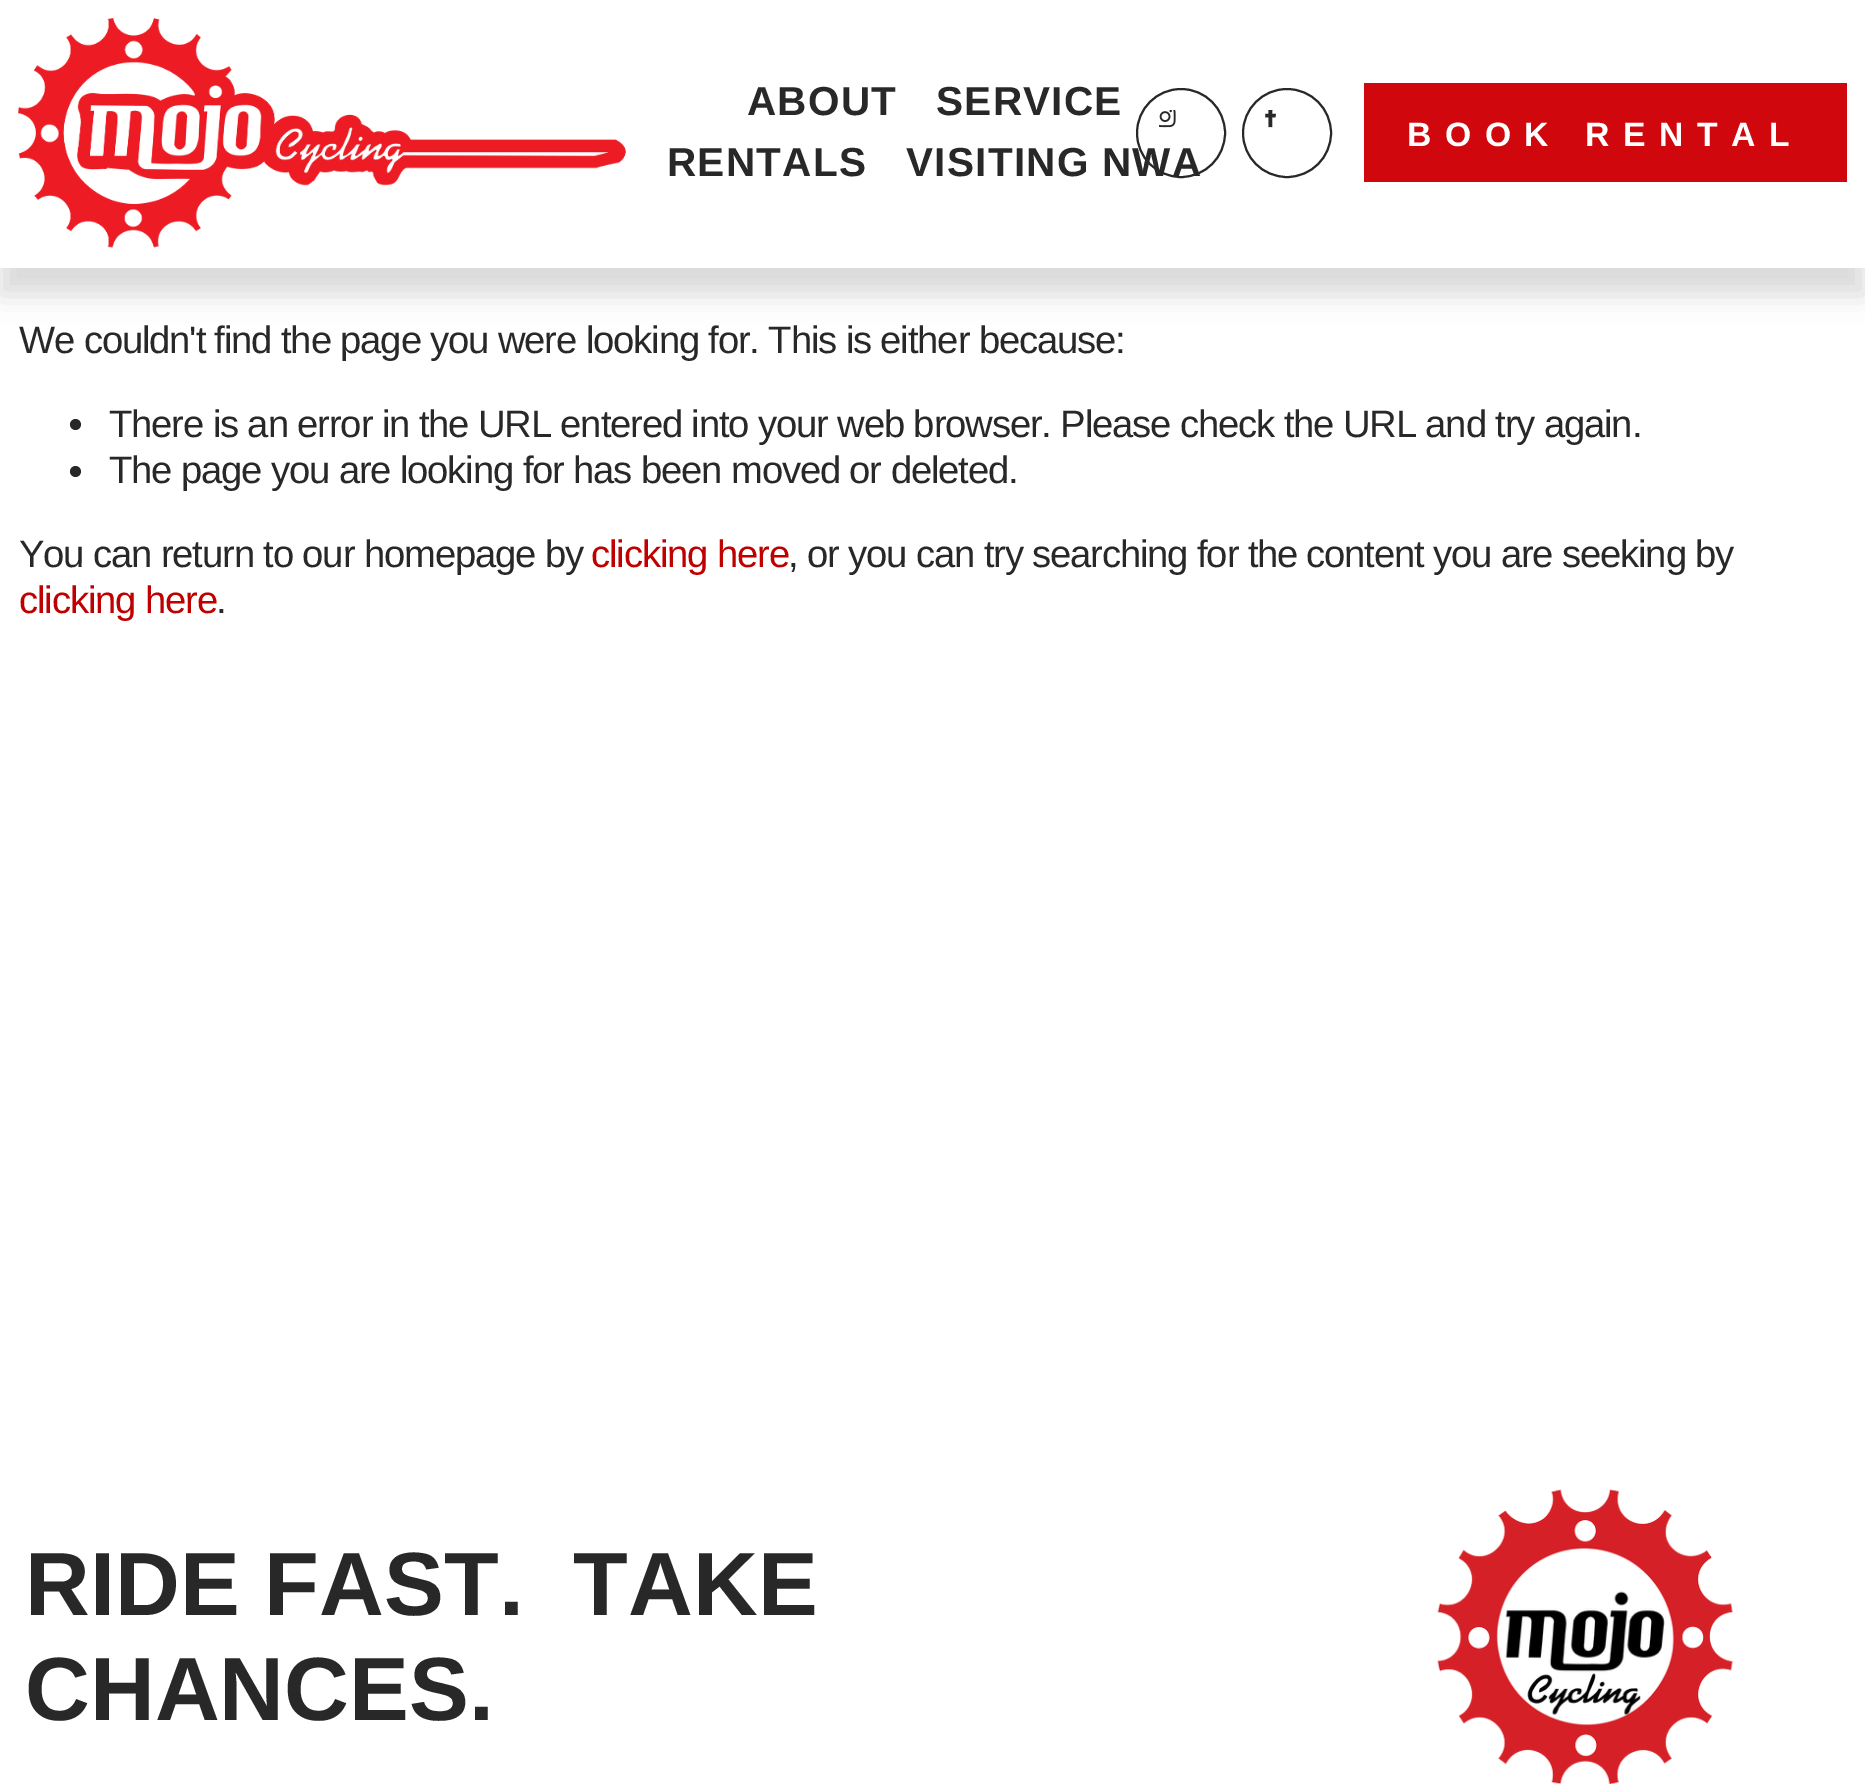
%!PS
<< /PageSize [1865 1786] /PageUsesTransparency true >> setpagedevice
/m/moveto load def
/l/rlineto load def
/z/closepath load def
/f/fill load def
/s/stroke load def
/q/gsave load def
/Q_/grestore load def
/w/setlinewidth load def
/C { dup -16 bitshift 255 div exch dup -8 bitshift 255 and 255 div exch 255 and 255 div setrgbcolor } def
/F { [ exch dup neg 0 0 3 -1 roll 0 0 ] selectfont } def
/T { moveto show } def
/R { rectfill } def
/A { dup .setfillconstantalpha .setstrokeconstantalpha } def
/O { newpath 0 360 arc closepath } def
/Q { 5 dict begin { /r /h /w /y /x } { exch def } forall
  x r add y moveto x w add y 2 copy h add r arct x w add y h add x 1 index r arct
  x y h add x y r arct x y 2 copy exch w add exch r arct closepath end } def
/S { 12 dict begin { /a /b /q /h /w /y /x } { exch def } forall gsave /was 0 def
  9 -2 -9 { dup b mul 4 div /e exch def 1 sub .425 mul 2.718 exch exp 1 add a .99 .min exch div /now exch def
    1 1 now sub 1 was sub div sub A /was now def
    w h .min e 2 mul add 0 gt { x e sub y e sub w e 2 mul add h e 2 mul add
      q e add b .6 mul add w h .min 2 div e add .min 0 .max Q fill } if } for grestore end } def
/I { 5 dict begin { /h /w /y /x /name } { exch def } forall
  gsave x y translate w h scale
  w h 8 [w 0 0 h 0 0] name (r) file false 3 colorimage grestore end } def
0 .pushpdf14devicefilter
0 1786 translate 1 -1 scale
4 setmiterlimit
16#FFFFFF C
0 0 1865 1786 R
q
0 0 m 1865 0 l 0 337 l -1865 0 l z 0 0 m 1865 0 l 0 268 l -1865 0 l z eoclip newpath
16#D9D9D9 C
0 27 1865 268 0 13.5 1 S
Q_
(1.rgb) 18 18 608 230 I
/LiberationSans-Bold 40.5 F
16#282828 C
747 115 m 1.25 0 (ABOUT) ashow
936 115 m 1.25 0 (SERVICE) ashow
667 176 m 1.25 0 (RENTALS) ashow
906 176 m 1.25 0 (VISITING NWA) ashow
2 w
1181 133 44 O s
(2.rgb) 1159 110 17 18 I
1287 133 44 O s
(3.rgb) 1265 110 11 18 I
16#D0080E C
1364 83 483 99 R
/LiberationSans-Bold 33.75 F
16#FFFFFF C
1407 146 m 13.5 0 (BOOK RENTAL) ashow
/LiberationSans-Regular 38.25 F
16#282828 C
19 353 m -1.15 0 (We couldn't find the page you were looking for. This is either because:) ashow
75.5 424.5 5.5 O f
109 437 m -1.15 0 (There is an error in the URL entered into your web browser. Please check the URL and try again.) ashow
75.5 471.5 5.5 O f
109 483 m -1.15 0 (The page you are looking for has been moved or deleted.) ashow
19 567 m -1.15 0 (You can return to our homepage by) ashow
16#BF0000 C
591 567 m -1.15 0 (clicking here) ashow
16#282828 C
788 567 m -1.15 0 (, or you can try searching for the) ashow
1306 567 m -1.15 0 (content you are seeking by) ashow
16#BF0000 C
19 613 m -1.15 0 (clicking here) ashow
16#282828 C
216 613 m -1.15 0 (.) ashow
/LiberationSans-Bold 89.75 F
(RIDE FAST.  TAKE) 25 1615 T
(CHANCES.) 25 1720 T
(4.rgb) 1437 1489 296 296 I
.poppdf14devicefilter showpage
